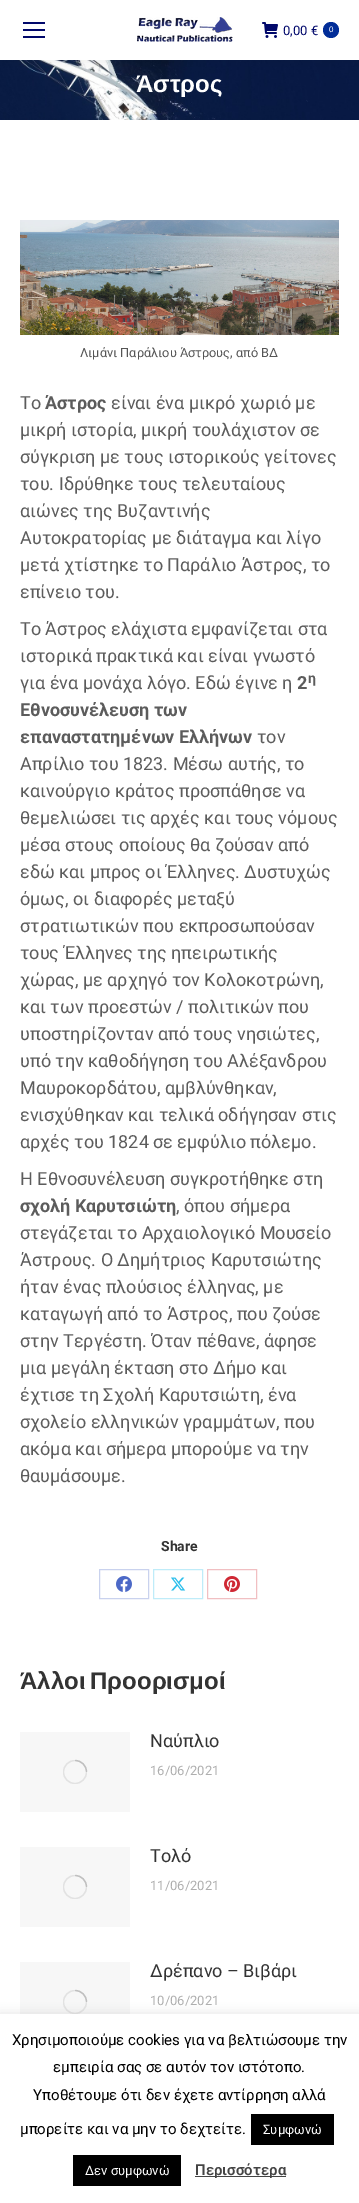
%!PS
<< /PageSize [359 2203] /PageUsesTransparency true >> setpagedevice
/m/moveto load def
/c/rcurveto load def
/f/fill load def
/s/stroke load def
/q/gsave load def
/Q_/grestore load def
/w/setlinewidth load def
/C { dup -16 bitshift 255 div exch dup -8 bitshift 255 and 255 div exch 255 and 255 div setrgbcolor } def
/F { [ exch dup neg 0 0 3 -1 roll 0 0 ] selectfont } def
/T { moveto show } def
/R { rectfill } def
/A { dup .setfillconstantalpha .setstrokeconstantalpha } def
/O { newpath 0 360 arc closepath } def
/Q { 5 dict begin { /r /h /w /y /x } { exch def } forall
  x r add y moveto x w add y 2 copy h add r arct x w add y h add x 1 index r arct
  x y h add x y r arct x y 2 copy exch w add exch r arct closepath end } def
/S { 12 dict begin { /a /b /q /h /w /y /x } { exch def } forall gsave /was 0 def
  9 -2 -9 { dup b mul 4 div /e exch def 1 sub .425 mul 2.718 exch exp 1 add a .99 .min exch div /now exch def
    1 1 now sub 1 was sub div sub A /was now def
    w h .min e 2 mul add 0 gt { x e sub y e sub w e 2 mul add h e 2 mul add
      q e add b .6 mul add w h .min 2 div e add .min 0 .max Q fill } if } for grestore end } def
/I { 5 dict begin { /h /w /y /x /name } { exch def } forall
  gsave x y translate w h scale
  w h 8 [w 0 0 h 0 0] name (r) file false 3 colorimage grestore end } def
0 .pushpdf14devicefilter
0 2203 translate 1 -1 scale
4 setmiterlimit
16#FFFFFF C
0 0 359 2203 R
(3.rgb) 0 60 359 60 I
16#000000 C
-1 -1 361 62 0 7.5 .07 S
16#FFFFFF C
0 0 359 60 R
16#01086B C
23 22 22 2 R
23 29 22 2 R
23 36 22 2 R
(1.rgb) 137 17 96 25 I
(2.rgb) 262 22 16 16 I
/Roboto-Regular 13 F
(0,00 €) 283 35 T
16#022D98 C
331 30 8 O f
/LiberationSans-Regular 8 F
16#FFFFFF C
(0) 329 32 T
/LiberationSans-Bold 24 F
(Άστρος) 136 92 T
(4.rgb) 20 220 319 115 I
/Roboto-Regular 12.75 F
16#555555 C
(Λιμάνι Παράλιου Άστρους, από ΒΔ) 80 357 T
/Roboto-Regular 18 F
16#5C5C5C C
(Το) 20 409 T
/Roboto-Bold 18 F
(Άστρος) 45 409 T
/Roboto-Regular 18 F
(είναι ένα μικρό χωριό με) 111 409 T
(μικρή ιστορία, μικρή τουλάχιστον σε) 20 436 T
(σύγκριση με τους ιστορικούς γείτονες) 20 463 T
(του. Ιδρύθηκε τους τελευταίους) 20 490 T
(αιώνες της Βυζαντινής) 20 517 T
(Αυτοκρατορίας με διάταγμα και λίγο) 20 544 T
(μετά χτίστηκε το Παράλιο Άστρος, το) 20 571 T
(επίνειο του.) 20 598 T
(Το Άστρος ελάχιστα εμφανίζεται στα) 20 635 T
(ιστορικά πρακτικά και είναι γνωστό) 20 662 T
(για ένα μονάχα λόγο. Εδώ έγινε η) 20 689 T
/Roboto-Bold 18 F
(2) 297 689 T
/Roboto-Bold 14 F
(η) 308 683 T
/Roboto-Bold 18 F
(Εθνοσυνέλευση των) 20 716 T
(επαναστατημένων Ελλήνων) 20 743 T
/Roboto-Regular 18 F
(τον) 257 743 T
(Απρίλιο του 1823. Μέσω αυτής, το) 20 770 T
(καινούργιο κράτος προσπάθησε να) 20 797 T
(θεμελιώσει τις αρχές και τους νόμους) 20 824 T
(μέσα στους οποίους θα ζούσαν από) 20 851 T
(εδώ και μπρος οι Έλληνες. Δυστυχώς) 20 878 T
(όμως, οι διαφορές μεταξύ) 20 905 T
(στρατιωτικών που εκπροσωπούσαν) 20 932 T
(τους Έλληνες της ηπειρωτικής) 20 959 T
(χώρας, με αρχηγό τον Κολοκοτρώνη,) 20 986 T
(και των προεστών / πολιτικών που) 20 1013 T
(υποστηρίζονταν από τους νησιώτες,) 20 1040 T
(υπό την καθοδήγηση του Αλέξανδρου) 20 1067 T
(Μαυροκορδάτου, αμβλύνθηκαν,) 20 1094 T
(ενισχύθηκαν και τελικά οδήγησαν στις) 20 1121 T
(αρχές του 1824 σε εμφύλιο πόλεμο.) 20 1148 T
(Η Εθνοσυνέλευση συγκροτήθηκε στη) 20 1185 T
/Roboto-Bold 18 F
(σχολή Καρυτσιώτη) 20 1212 T
/Roboto-Regular 18 F
(, όπου σήμερα) 176 1212 T
(στεγάζεται το Αρχαιολογικό Μουσείο) 20 1239 T
(Άστρους. Ο Δημήτριος Καρυτσιώτης) 20 1266 T
(ήταν ένας πλούσιος έλληνας, με) 20 1293 T
(καταγωγή από το Άστρος, που ζούσε) 20 1320 T
(στην Τεργέστη. Όταν πέθανε, άφησε) 20 1347 T
(μια μεγάλη έκταση στο Δήμο και) 20 1374 T
(έχτισε τη Σχολή Καρυτσιώτη, ένα) 20 1401 T
(σχολείο ελληνικών γραμμάτων, που) 20 1428 T
(ακόμα και σήμερα μπορούμε να την) 20 1455 T
(θαυμάσουμε.) 20 1482 T
/Roboto-Bold 14 F
16#333333 C
(Share) 161 1551 T
16#C9D2EE C
99.5 1569.5 49 29 rectstroke
(5.rgb) 116 1576 16 16 I
16#BFECF9 C
153.5 1569.5 49 29 rectstroke
(6.rgb) 171 1577 15 14 I
16#F1BFC2 C
207.5 1569.5 49 29 rectstroke
(7.rgb) 224 1576 16 16 I
/LiberationSans-Bold 24 F
16#333333 C
20 1689 m -2 0 32 (Άλλοι Προορισμοί) widthshow
16#F7F7F7 C
20 1732 110 80 R
q
63 1760 24 24 rectclip
16#E2E2E2 C
1.3 w
75 1772 11.5 O s
Q_
0.25 A
16#5C5C5C C
1.3 w
86.5 1772 m 0 -6.5 -5 -11.5 -11.5 -11.5 c s
/Roboto-Regular 18 F
1 A
16#333333 C
(Ναύπλιο) 150 1747 T
/Roboto-Regular 13 F
16#AEAEAE C
(16/06/2021) 150 1775 T
16#F7F7F7 C
20 1847 110 80 R
q
63 1875 24 24 rectclip
16#E2E2E2 C
75 1887 11.5 O s
Q_
0.25 A
16#5C5C5C C
86.5 1887 m 0 -6.5 -5 -11.5 -11.5 -11.5 c s
/Roboto-Regular 18 F
1 A
16#333333 C
(Τολό) 150 1862 T
/Roboto-Regular 13 F
16#AEAEAE C
(11/06/2021) 150 1890 T
16#F7F7F7 C
20 1962 110 52 R
q
63 1990 24 24 rectclip
16#E2E2E2 C
75 2002 11.5 O s
Q_
0.25 A
16#5C5C5C C
86.5 2002 m 0 -6.5 -5 -11.5 -11.5 -11.5 c s
/Roboto-Regular 18 F
1 A
16#333333 C
(Δρέπανο – Βιβάρι) 150 1977 T
/Roboto-Regular 13 F
16#AEAEAE C
(10/06/2021) 150 2005 T
16#ACABAB C
0 2013 359 189 0 5 .3 S
16#FFFFFF C
0 2014 359 189 R
/Roboto-Regular 15 F
16#000000 C
(Χρησιμοποιούμε cookies για να βελτιώσουμε την) 12 2045 T
(εμπειρία σας σε αυτόν τον ιστότοπο.) 53 2072 T
(Υποθέτουμε ότι δεν έχετε αντίρρηση αλλά) 33 2100 T
(μπορείτε και να μην το δεχτείτε.) 20 2134 T
251 2114 83 31 R
/Roboto-Regular 13 F
16#FFFFFF C
(Συμφωνώ) 263 2134 T
16#000000 C
73 2155 108 31 R
16#FFFFFF C
(Δεν συμφωνώ) 85 2175 T
16#444444 C
195 2176 91 1 R
/Roboto-SemiBold 15 F
(Περισσότερα) 195 2175 T
.poppdf14devicefilter showpage
